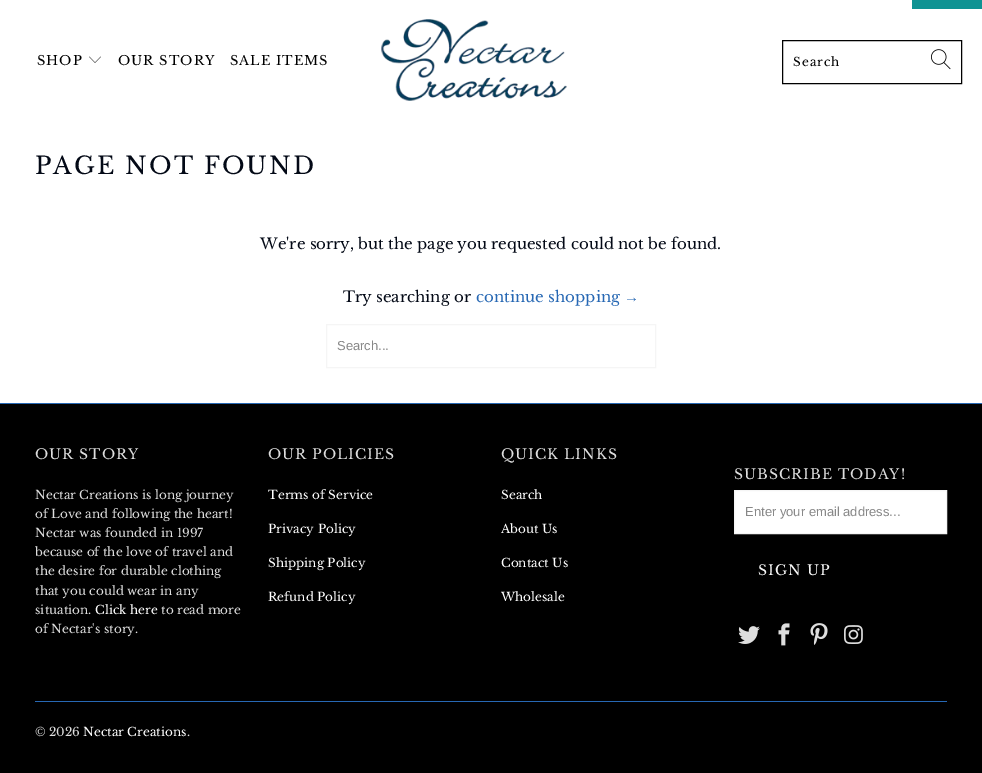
%!PS
<< /PageSize [982 773] >> setpagedevice
/m/moveto load def
/l/rlineto load def
/z/closepath load def
/f/fill load def
/s/stroke load def
/q/gsave load def
/Q_/grestore load def
/C { dup -16 bitshift 255 div exch dup -8 bitshift 255 and 255 div exch 255 and 255 div setrgbcolor } def
/F { [ exch dup neg 0 0 3 -1 roll 0 0 ] selectfont } def
/T { moveto show } def
/R { rectfill } def
/I { 5 dict begin { /h /w /y /x /name } { exch def } forall
  gsave x y translate w h scale
  w h 8 [w 0 0 h 0 0] name (r) file false 3 colorimage grestore end } def
0 773 translate 1 -1 scale
4 setmiterlimit
16#FFFFFF C
0 0 982 773 R
16#0F9393 C
912 0 70 9 R
/LibreBaskerville-Regular 13 F
16#000000 C
37 65 m 1 0 (SHOP) ashow
(1.rgb) 89 56 12 7 I
118 65 m 1 0 (OUR STORY) ashow
230 65 m 1 0 (SALE ITEMS) ashow
(2.rgb) 381 19 186 82 I
782.5 40.5 179 43 rectstroke
/LibreBaskerville-Regular 12 F
793 66 m 1 0 (Search) ashow
(3.rgb) 931 49 20 21 I
/LibreBaskerville-Regular 24 F
16#030916 C
35 174 m 2 0 (PAGE NOT FOUND) ashow
/LibreBaskerville-Regular 15 F
(We're sorry, but the page you requested could not be found.) 260 249 T
(Try searching or) 343 302 T
16#2768B4 C
(continue shopping) 476 302 T
/LiberationSerif-Regular 15 F
(→) 624 302 T
16#F5F5F5 C
326.5 324.5 329 43 rectstroke
/LiberationSans-Regular 13 F
16#888888 C
(Search...) 337 350 T
16#000000 C
0 404 982 369 R
16#2768B4 C
0 403 982 1 R
/LibreBaskerville-Regular 14 F
16#DEDEDE C
35 459 m 1 0 (OUR STORY) ashow
/LibreBaskerville-Regular 12 F
(Nectar Creations is long journey) 35 499 T
(of Love and following the heart!) 35 518 T
(Nectar was founded in 1997) 35 537 T
(because of the love of travel and) 35 556 T
(the desire for durable clothing) 35 575 T
(that you could wear in any) 35 595 T
(situation.) 35 614 T
16#FFFFFF C
(Click here) 95 614 T
16#DEDEDE C
(to read more) 161 614 T
(of Nectar's story.) 35 633 T
/LibreBaskerville-Regular 14 F
268 459 m 1 0 (OUR POLICIES) ashow
/LibreBaskerville-Regular 12 F
16#FFFFFF C
(Terms of Service) 268 499 T
(Privacy Policy) 268 533 T
(Shipping Policy) 268 567 T
(Refund Policy) 268 601 T
/LibreBaskerville-Regular 14 F
16#DEDEDE C
501 459 m 1 0 (QUICK LINKS) ashow
/LibreBaskerville-Regular 12 F
16#FFFFFF C
(Search) 501 499 T
(About Us) 501 533 T
(Contact Us) 501 567 T
(Wholesale) 501 601 T
/LibreBaskerville-Regular 14 F
16#DEDEDE C
734 479 m 1 0 (SUBSCRIBE TODAY!) ashow
16#FFFFFF C
734.5 490.5 m 212 0 l 0 43 l -212 0 l z q f Q_
16#F5F5F5 C
s
/LiberationSans-Regular 13 F
16#888888 C
(Enter your email address...) 745 516 T
/LibreBaskerville-Regular 14 F
16#F5F5F5 C
758 575 m 1 0 (SIGN UP) ashow
(4.rgb) 738 626 22 18 I
(5.rgb) 778 623 12 23 I
(6.rgb) 810 623 18 22 I
(7.rgb) 844 625 19 19 I
16#2768B4 C
35 701 912 1 R
/LibreBaskerville-Regular 12 F
16#DEDEDE C
(© 2026) 35 736 T
16#FFFFFF C
(Nectar Creations) 83 736 T
16#DEDEDE C
(.) 187 736 T
showpage
